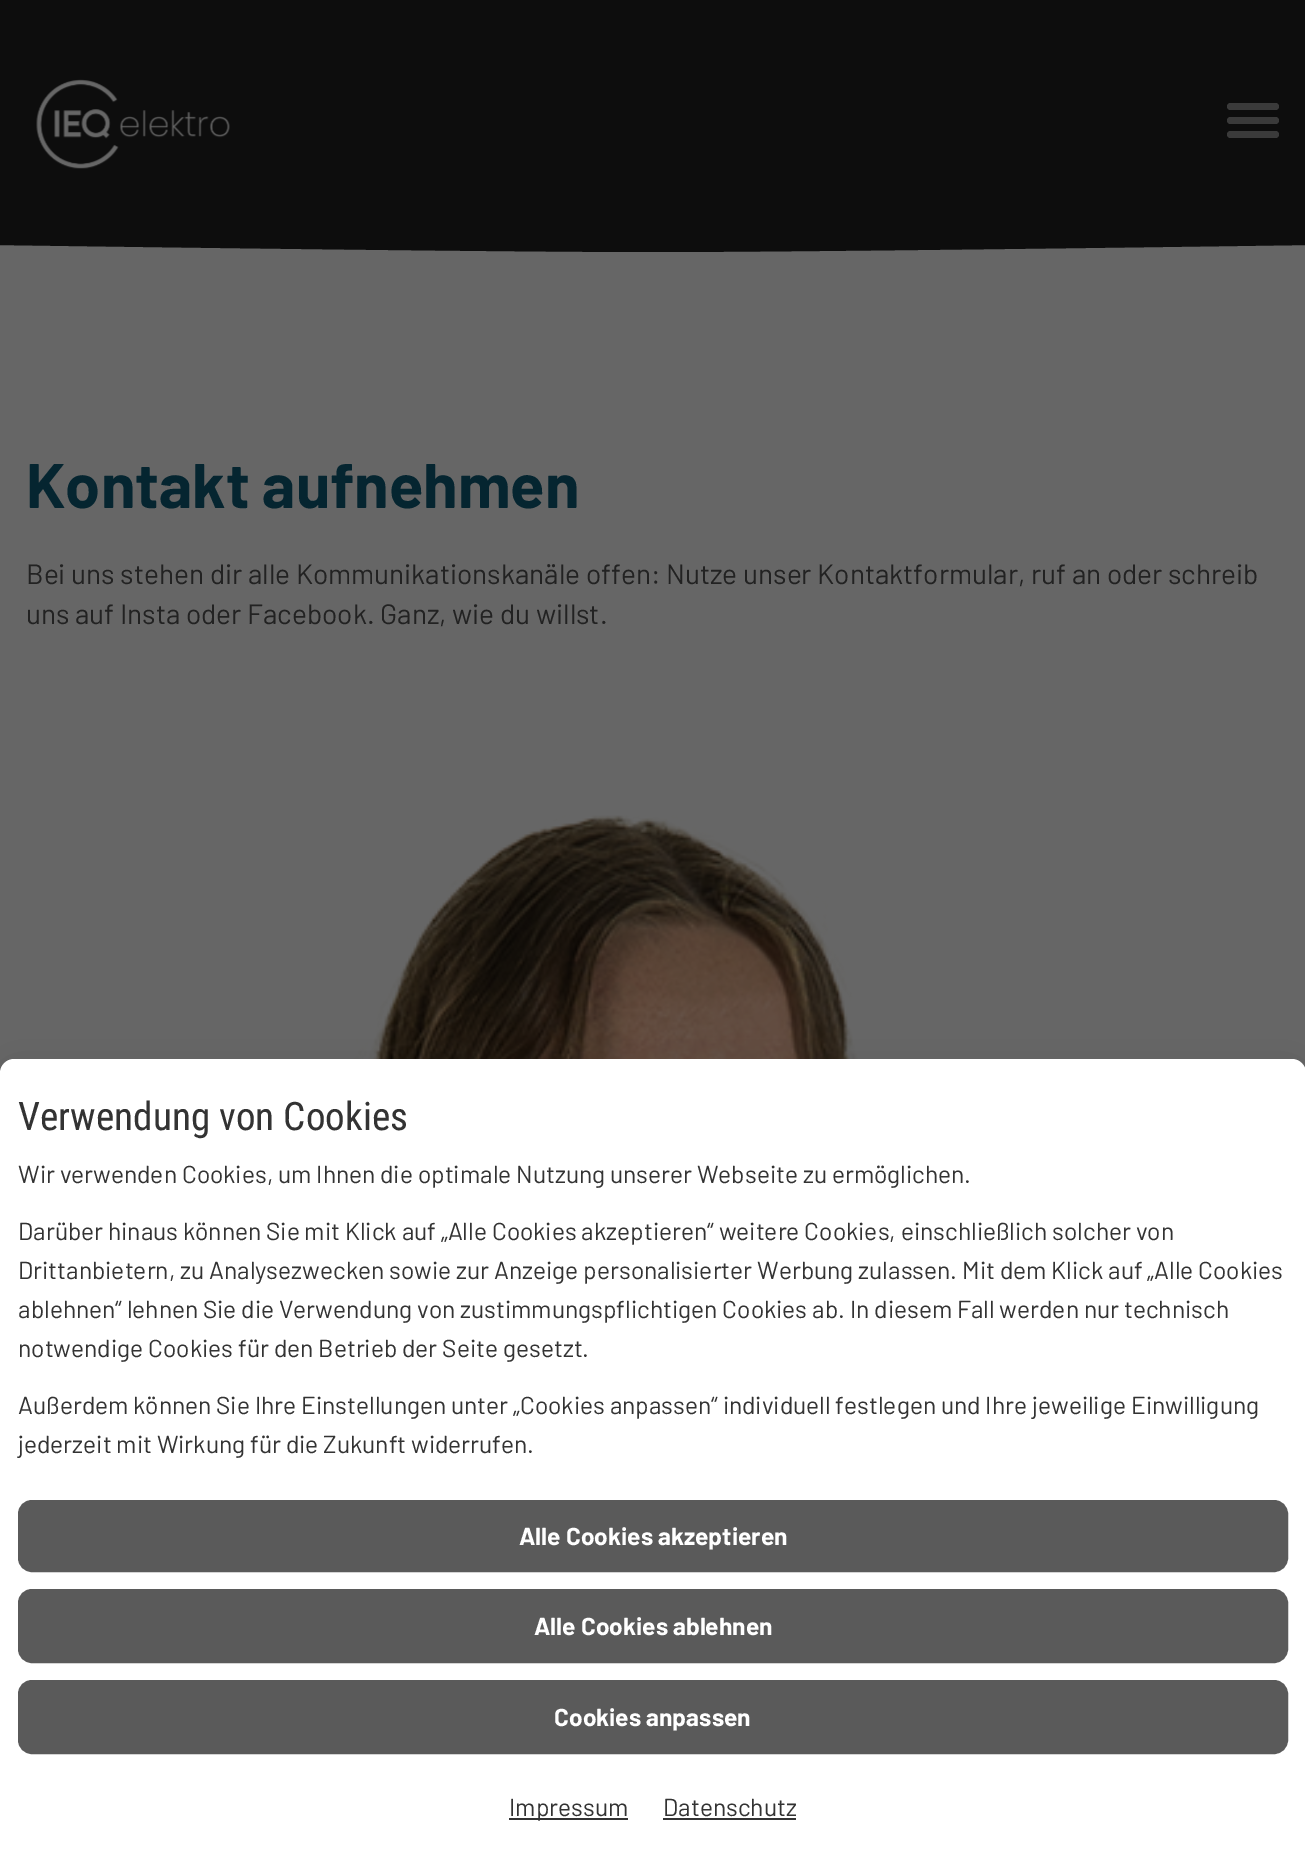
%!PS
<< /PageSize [1305 1862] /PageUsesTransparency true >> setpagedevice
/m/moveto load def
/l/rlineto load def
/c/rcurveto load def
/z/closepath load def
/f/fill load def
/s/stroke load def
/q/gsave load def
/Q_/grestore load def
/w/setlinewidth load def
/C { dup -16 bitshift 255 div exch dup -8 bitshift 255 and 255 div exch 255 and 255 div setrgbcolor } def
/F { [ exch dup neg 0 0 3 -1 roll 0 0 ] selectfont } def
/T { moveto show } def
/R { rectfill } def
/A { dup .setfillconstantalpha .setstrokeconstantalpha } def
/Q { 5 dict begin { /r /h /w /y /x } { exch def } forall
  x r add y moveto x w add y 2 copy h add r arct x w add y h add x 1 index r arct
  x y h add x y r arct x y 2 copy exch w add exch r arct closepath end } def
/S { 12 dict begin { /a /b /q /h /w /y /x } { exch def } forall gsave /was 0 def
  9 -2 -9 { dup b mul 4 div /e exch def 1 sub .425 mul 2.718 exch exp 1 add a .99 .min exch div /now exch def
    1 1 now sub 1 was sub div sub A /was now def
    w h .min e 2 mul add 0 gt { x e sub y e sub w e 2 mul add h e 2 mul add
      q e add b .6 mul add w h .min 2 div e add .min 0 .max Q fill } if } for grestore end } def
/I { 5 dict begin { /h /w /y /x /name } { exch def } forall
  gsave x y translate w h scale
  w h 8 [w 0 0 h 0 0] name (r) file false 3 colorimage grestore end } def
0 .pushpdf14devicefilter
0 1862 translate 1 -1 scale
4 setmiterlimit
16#666666 C
0 0 1305 1862 R
16#0D0D0D C
653 -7 m -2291 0 l 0 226 l 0 0 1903 33 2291 33 c 388 0 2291 -33 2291 -33 c 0 -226 l z f
(1.rgb) 36 79 194 90 I
16#3A3A3A C
1227 103 52 7 3.5 Q f
1227 117 52 7 3.5 Q f
1227 131 52 7 3.5 Q f
/Barlow-Bold 63 F
16#052530 C
(Kontakt aufnehmen) 26 508 T
/Barlow-Regular 28 F
16#222222 C
(Bei uns stehen dir alle Kommunikationskanäle offen: Nutze unser Kontaktformular, ruf an oder schreib) 26 584 T
(uns auf Insta oder Facebook. Ganz, wie du willst.) 26 624 T
(2.rgb) 353 815 506 244 I
16#000000 C
0 1069 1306 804 14 24.5 .1 S
16#FFFFFF C
14 1059 m 1278 0 l 7.5 0 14 6.5 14 14 c 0 789 l -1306 0 l 0 -789 l 0 -7.5 6.5 -14 14 -14 c z f
/RobotoCondensed-Regular 39.25 F
16#333333 C
(Verwendung von Cookies) 18 1130 T
/Barlow-Regular 24.5 F
(Wir verwenden Cookies, um Ihnen die optimale Nutzung unserer Webseite zu ermöglichen.) 18 1183 T
(Darüber hinaus können Sie mit Klick auf „Alle Cookies akzeptieren“ weitere Cookies, einschließlich solcher von) 18 1240 T
(Drittanbietern, zu Analysezwecken sowie zur Anzeige personalisierter Werbung zulassen. Mit dem Klick auf „Alle Cookies) 18 1279 T
(ablehnen“ lehnen Sie die Verwendung von zustimmungspflichtigen Cookies ab. In diesem Fall werden nur technisch) 18 1318 T
(notwendige Cookies für den Betrieb der Seite gesetzt.) 18 1357 T
(Außerdem können Sie Ihre Einstellungen unter „Cookies anpassen“ individuell festlegen und Ihre jeweilige Einwilligung) 18 1414 T
(jederzeit mit Wirkung für die Zukunft widerrufen.) 18 1453 T
16#5A5A5A C
19 1501 1268 70 13 Q q f Q_
2 w
s
/Barlow-Bold 24.5 F
16#FFFFFF C
(Alle Cookies akzeptieren) 519 1545 T
16#5A5A5A C
19 1590 1268 72 13 Q q f Q_
s
16#FFFFFF C
(Alle Cookies ablehnen) 534 1635 T
16#5A5A5A C
19 1681 1268 72 13 Q q f Q_
s
16#FFFFFF C
(Cookies anpassen) 554 1726 T
16#333333 C
509 1818 119 2 R
/Barlow-Regular 24.5 F
(Impressum) 509 1816 T
(Datenschutz) 663 1816 T
663 1818 133 2 R
.poppdf14devicefilter showpage
